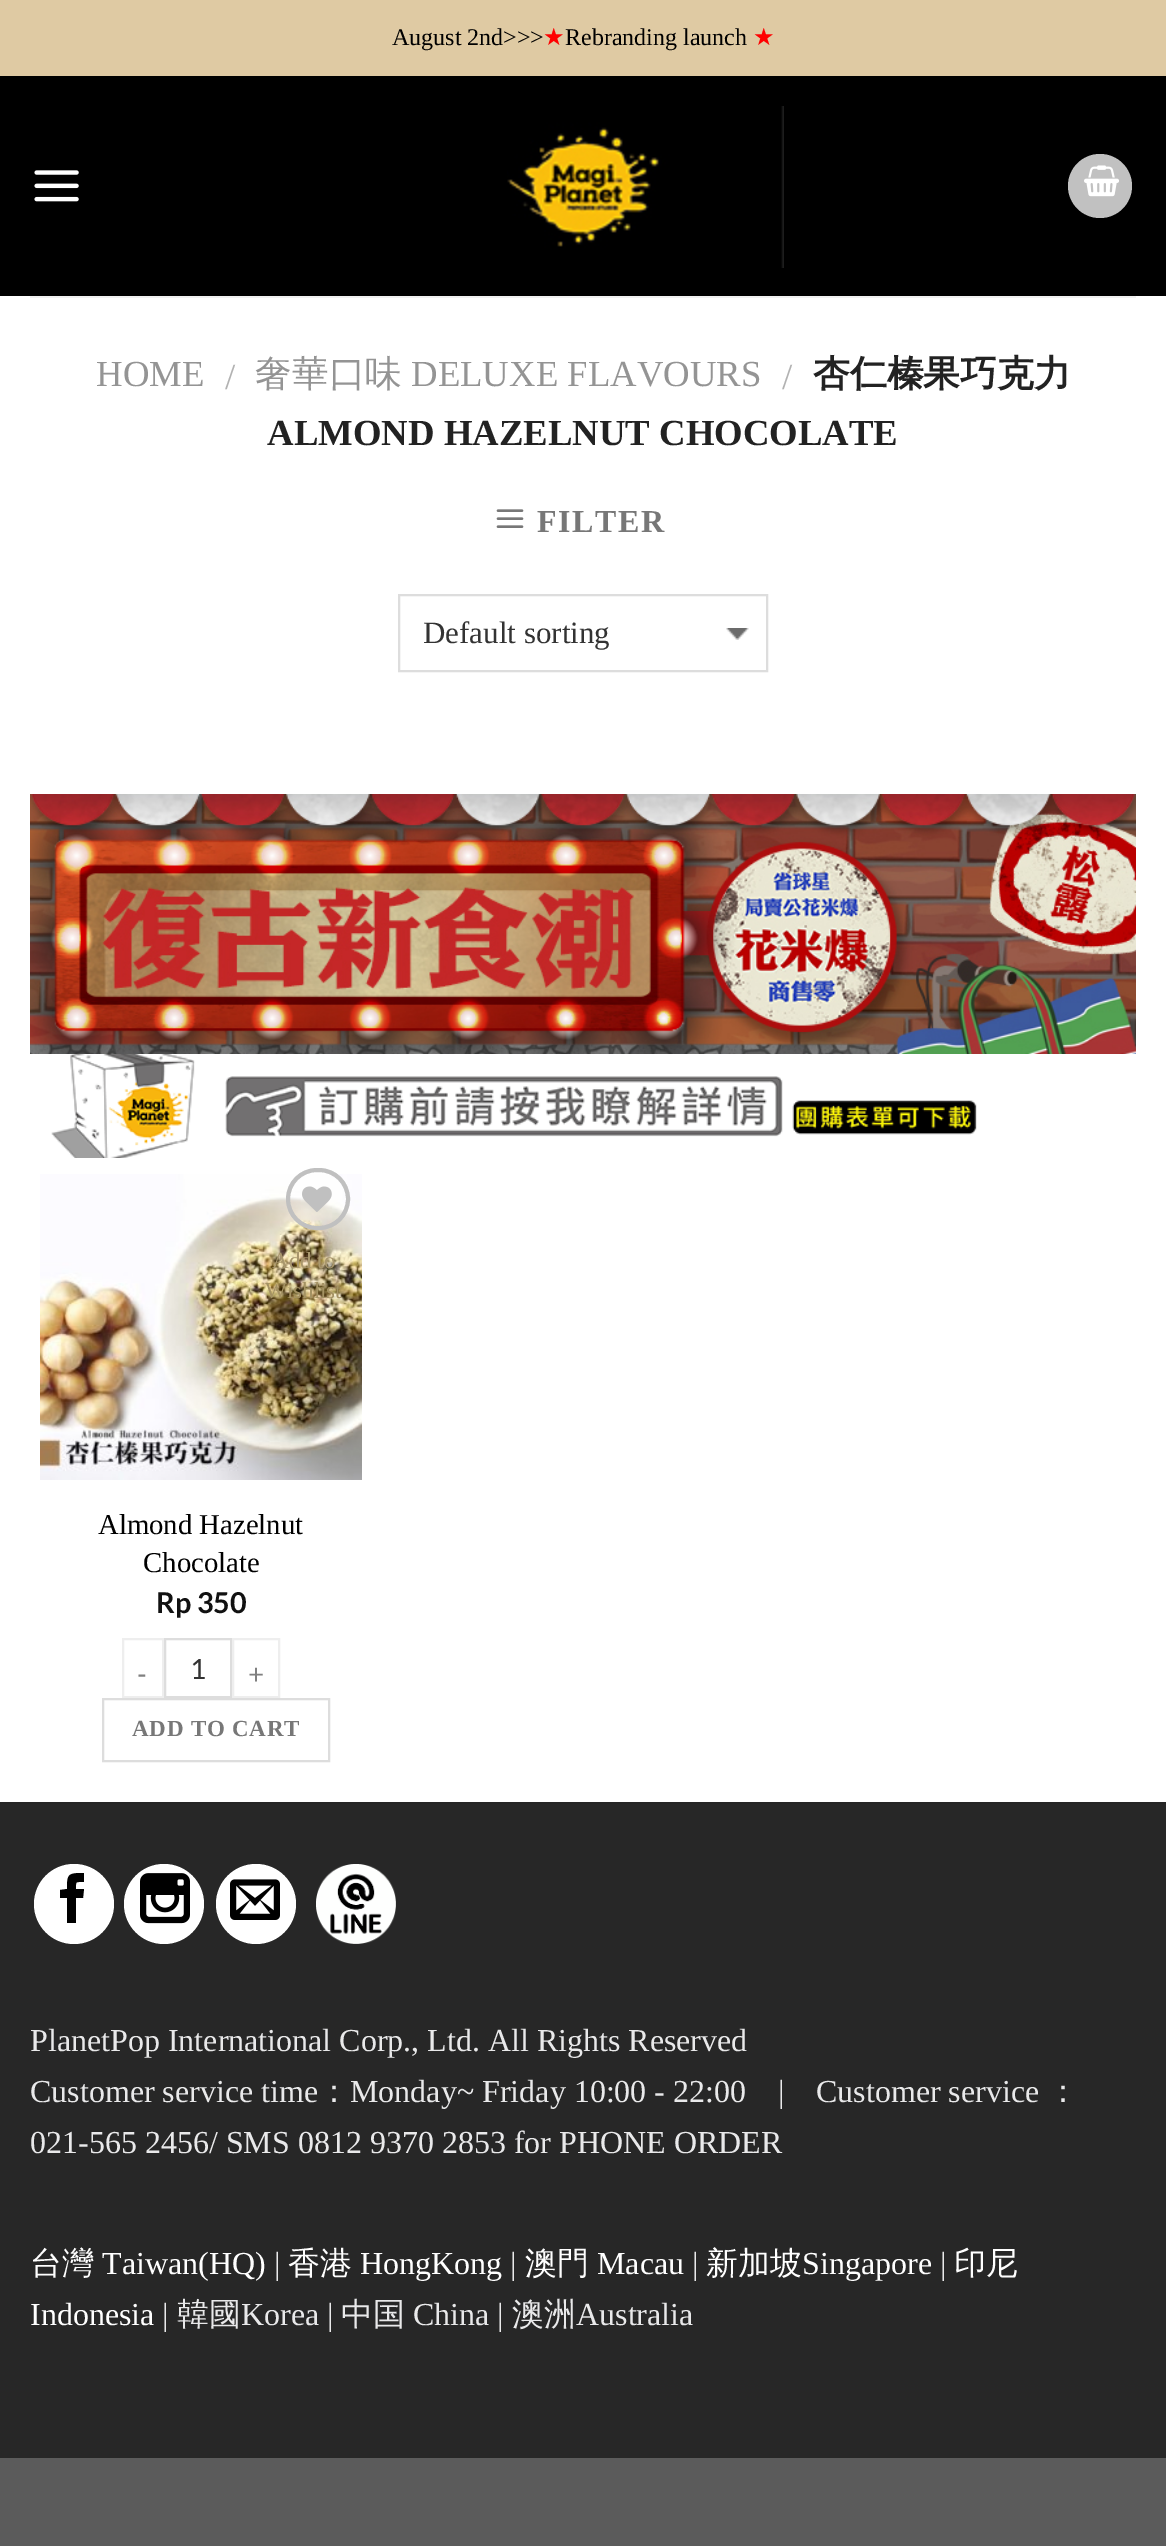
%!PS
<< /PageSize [1166 2546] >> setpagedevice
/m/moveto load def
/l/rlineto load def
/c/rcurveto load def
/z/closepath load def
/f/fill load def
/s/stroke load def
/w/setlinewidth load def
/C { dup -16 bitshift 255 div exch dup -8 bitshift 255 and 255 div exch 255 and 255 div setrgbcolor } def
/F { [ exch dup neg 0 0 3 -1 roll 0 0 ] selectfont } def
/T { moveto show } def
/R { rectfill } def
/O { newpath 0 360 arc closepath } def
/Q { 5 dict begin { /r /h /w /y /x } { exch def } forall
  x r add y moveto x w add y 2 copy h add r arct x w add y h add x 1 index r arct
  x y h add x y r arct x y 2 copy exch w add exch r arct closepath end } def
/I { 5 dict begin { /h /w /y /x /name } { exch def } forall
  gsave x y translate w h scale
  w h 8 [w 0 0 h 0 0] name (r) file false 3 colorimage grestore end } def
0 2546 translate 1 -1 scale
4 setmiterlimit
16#5B5B5B C
0 0 1166 2546 R
16#FFFFFF C
0 296 1166 1506 R
16#DFCAA3 C
0 0 1166 76 R
/LiberationSerif-Regular 24 F
16#000000 C
(August 2nd>>>) 392 45 T
/DejaVuSans-Regular 24 F
16#FF0000 C
(★) 543 45 T
/LiberationSerif-Regular 24 F
16#000000 C
(Rebranding launch) 565 45 T
/DejaVuSans-Regular 24 F
16#FF0000 C
(★) 753 45 T
16#000000 C
0 76 1166 220 R
(1.rgb) 34 170 45 32 I
(2.rgb) 507 106 277 162 I
16#C1C1C1 C
1100 186 32 O f
(3.rgb) 1084 165 35 32 I
16#F1F1F1 C
30 296 1106 2 R
/LiberationSerif-Regular 36.75 F
16#949494 C
(HOME) 96 386 T
16#B2B2B2 C
(/) 225 389 T
/WenQuanYiZenHei-Medium 36.75 F
16#949494 C
(奢華口味) 255 386 T
/LiberationSerif-Regular 36.75 F
(DELUXE FLAVOURS) 411 386 T
16#B2B2B2 C
(/) 782 389 T
/WenQuanYiZenHei-Bold 36.75 F
16#222222 C
(杏仁榛果巧克力) 813 386 T
/LiberationSerif-Bold 36.75 F
(ALMOND HAZELNUT CHOCOLATE) 267 445 T
(4.rgb) 496 509 28 19 I
/LiberationSerif-Bold 32 F
16#777777 C
537 532 m 1.5 0 (FILTER) ashow
(5.rgb) 726 628 23 12 I
16#DDDDDD C
2 w
399 595 368 76 rectstroke
/LiberationSerif-Regular 31 F
16#333333 C
(Default sorting) 423 643 T
(6.rgb) 30 794 1106 260 I
(7.rgb) 51 1054 926 104 I
(8.rgb) 40 1174 322 306 I
16#C0C0C0 C
4 w
288 1170 60 58 29 Q s
(9.rgb) 302 1186 30 26 I
/LiberationSerif-Regular 23 F
16#A9976D C
(Add to) 272 1268 T
16#A49263 C
(Wishlist) 265 1298 T
/LiberationSerif-Regular 28.75 F
16#000000 C
(Almond Hazelnut) 98 1534 T
(Chocolate) 143 1572 T
/Lato-Bold 28.75 F
16#111111 C
(Rp 350) 156 1613 T
16#EEEEEE C
2 w
123 1639 40 58 rectstroke
/Lato-Regular 28 F
16#808080 C
137 1684 m 1 0 (-) ashow
16#DDDDDD C
165 1639 66 58 rectstroke
16#333333 C
(1) 190 1679 T
16#EEEEEE C
233 1639 46 58 rectstroke
16#808080 C
248 1684 m 1 0 (+) ashow
16#DDDDDD C
103 1699 226 62 rectstroke
/LiberationSerif-Bold 23 F
16#777777 C
132 1736 m .75 0 (ADD TO CART) ashow
16#272727 C
0 1804 1166 654 R
16#252525 C
0 1802 1166 2 R
16#FFFFFF C
74 1904 40 O f
16#000000 C
76 1923 m -9 0 l 0 -25 l -7 0 l 0 -8 l 7 -1 l 0 -15 1 -16 17 -16 c 0 9 l -9 0 -8 -1 -8 7 c 8 0 l -1 9 l -7 0 l z f
16#FFFFFF C
164 1904 40 O f
(10.rgb) 140 1873 50 51 I
256 1904 40 O f
(11.rgb) 230 1879 50 41 I
(12.rgb) 316 1864 80 80 I
/LiberationSerif-Regular 32 F
16#E9E9EA C
(PlanetPop International Corp., Ltd. All Rights Reserved) 30 2051 T
(Customer service time) 30 2102 T
/WenQuanYiZenHei-Medium 32 F
(：) 318 2102 T
/LiberationSerif-Regular 32 F
(Monday~ Friday 10:00 - 22:00) 350 2102 T
(|) 778 2102 T
(Customer service) 816 2102 T
/WenQuanYiZenHei-Medium 32 F
(：) 1047 2102 T
/LiberationSerif-Regular 32 F
(021-565 2456/ SMS 0812 9370 2853 for PHONE ORDER) 30 2153 T
/WenQuanYiZenHei-Medium 32 F
16#FFFFFF C
(台灣) 30 2274 T
/LiberationSerif-Regular 32 F
(Taiwan\(HQ\)) 102 2274 T
16#E9E9EA C
(|) 274 2274 T
/WenQuanYiZenHei-Medium 32 F
16#FFFFFF C
(香港) 288 2274 T
/LiberationSerif-Regular 32 F
(HongKong) 360 2274 T
16#E9E9EA C
(|) 510 2274 T
/WenQuanYiZenHei-Medium 32 F
16#FFFFFF C
(澳門) 525 2274 T
/LiberationSerif-Regular 32 F
(Macau) 597 2274 T
16#E9E9EA C
(|) 692 2274 T
/WenQuanYiZenHei-Medium 32 F
16#FFFFFF C
(新加坡) 706 2274 T
/LiberationSerif-Regular 32 F
(Singapore) 802 2274 T
16#E9E9EA C
(|) 940 2274 T
/WenQuanYiZenHei-Medium 32 F
16#FFFFFF C
(印尼) 954 2274 T
/LiberationSerif-Regular 32 F
(Indonesia) 30 2325 T
16#E9E9EA C
(|) 162 2325 T
/WenQuanYiZenHei-Medium 32 F
(韓國) 177 2325 T
/LiberationSerif-Regular 32 F
(Korea |) 241 2325 T
/WenQuanYiZenHei-Medium 32 F
(中国) 341 2325 T
/LiberationSerif-Regular 32 F
(China |) 413 2325 T
/WenQuanYiZenHei-Medium 32 F
(澳洲) 512 2325 T
/LiberationSerif-Regular 32 F
(Australia) 576 2325 T
showpage
